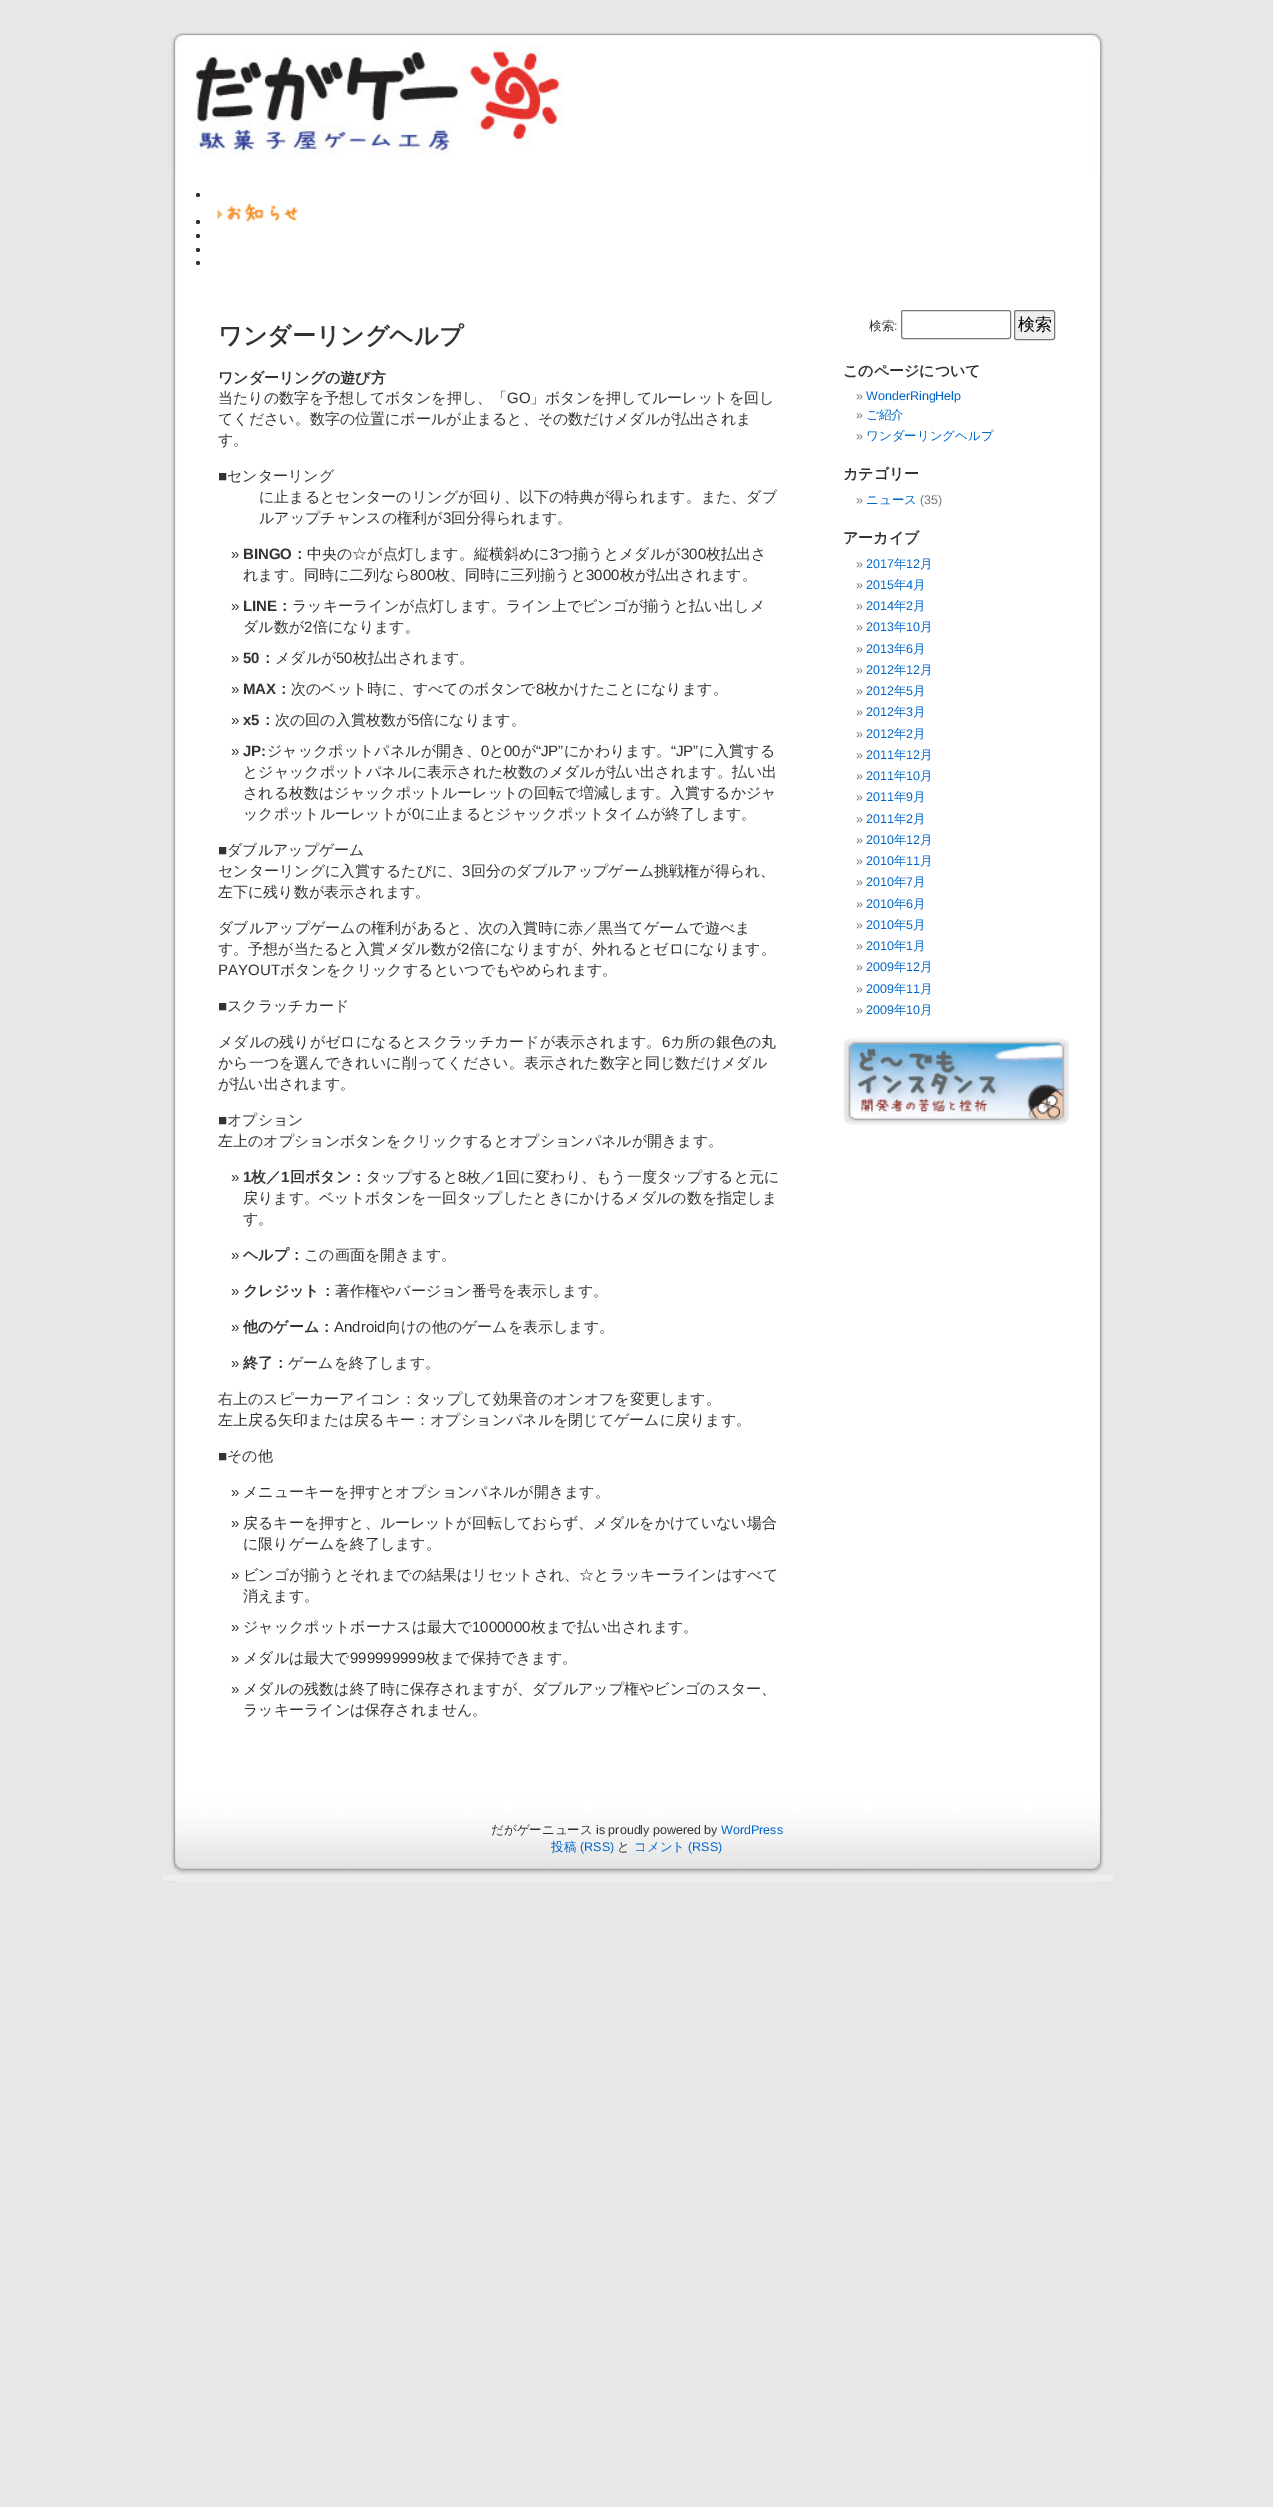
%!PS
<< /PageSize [1273 2507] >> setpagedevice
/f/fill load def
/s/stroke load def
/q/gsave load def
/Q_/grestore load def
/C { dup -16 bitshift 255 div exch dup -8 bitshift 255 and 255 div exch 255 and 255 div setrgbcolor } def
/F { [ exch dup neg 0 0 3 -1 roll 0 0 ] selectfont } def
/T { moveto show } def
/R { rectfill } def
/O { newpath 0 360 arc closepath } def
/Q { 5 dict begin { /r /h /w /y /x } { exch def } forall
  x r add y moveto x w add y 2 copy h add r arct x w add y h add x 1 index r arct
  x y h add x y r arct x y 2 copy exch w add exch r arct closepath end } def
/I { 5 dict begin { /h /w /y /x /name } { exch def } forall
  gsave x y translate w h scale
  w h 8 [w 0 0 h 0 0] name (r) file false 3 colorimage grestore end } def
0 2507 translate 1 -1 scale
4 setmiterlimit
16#E7E7E7 C
0 0 1273 2507 R
(1.rgb) 171 175 933 1707 I
(2.rgb) 164 25 947 150 I
16#333333 C
198 195 2 O f
198 222 2 O f
(3.rgb) 217 203 81 19 I
198 236 2 O f
198 250 2 O f
198 263 2 O f
/WenQuanYiZenHei-Bold 24 F
(ワンダーリングヘルプ) 218 344 T
/WenQuanYiZenHei-Bold 15 F
(ワンダーリングの遊び方) 218 383 T
/WenQuanYiZenHei-Medium 15 F
(当たりの数字を予想してボタンを押し、「) 218 403 T
/LiberationSans-Regular 15 F
(GO) 507 403 T
/WenQuanYiZenHei-Medium 15 F
(」ボタンを押してルーレットを回し) 530 403 T
(てください。数字の位置にボールが止まると、その数だけメダルが払出されま) 218 424 T
(す。) 218 445 T
/LiberationSans-Regular 15 F
(■) 218 481 T
/WenQuanYiZenHei-Medium 15 F
(センターリング) 227 481 T
(に止まるとセンターのリングが回り、以下の特典が得られます。また、ダブ) 259 502 T
(ルアップチャンスの権利が) 259 523 T
/LiberationSans-Regular 15 F
(3) 443 523 T
/WenQuanYiZenHei-Medium 15 F
(回分得られます。) 451 523 T
/LiberationSans-Regular 15 F
(») 231 559 T
/LiberationSans-Bold 15 F
(BINGO) 243 559 T
/WenQuanYiZenHei-Bold 15 F
(：) 292 559 T
/WenQuanYiZenHei-Medium 15 F
(中央の☆が点灯します。縦横斜めに) 307 559 T
/LiberationSans-Regular 15 F
(3) 550 559 T
/WenQuanYiZenHei-Medium 15 F
(つ揃うとメダルが) 558 559 T
/LiberationSans-Regular 15 F
(300) 681 559 T
/WenQuanYiZenHei-Medium 15 F
(枚払出さ) 706 559 T
(れます。同時に二列なら) 243 580 T
/LiberationSans-Regular 15 F
(800) 410 580 T
/WenQuanYiZenHei-Medium 15 F
(枚、同時に三列揃うと) 435 580 T
/LiberationSans-Regular 15 F
(3000) 586 580 T
/WenQuanYiZenHei-Medium 15 F
(枚が払出されます。) 620 580 T
/LiberationSans-Regular 15 F
(») 231 611 T
/LiberationSans-Bold 15 F
(LINE) 243 611 T
/WenQuanYiZenHei-Bold 15 F
(：) 277 611 T
/WenQuanYiZenHei-Medium 15 F
(ラッキーラインが点灯します。ライン上でビンゴが揃うと払い出しメ) 292 611 T
(ダル数が) 243 632 T
/LiberationSans-Regular 15 F
(2) 304 632 T
/WenQuanYiZenHei-Medium 15 F
(倍になります。) 313 632 T
/LiberationSans-Regular 15 F
(») 231 663 T
/LiberationSans-Bold 15 F
(50) 243 663 T
/WenQuanYiZenHei-Bold 15 F
(：) 260 663 T
/WenQuanYiZenHei-Medium 15 F
(メダルが) 275 663 T
/LiberationSans-Regular 15 F
(50) 336 663 T
/WenQuanYiZenHei-Medium 15 F
(枚払出されます。) 353 663 T
/LiberationSans-Regular 15 F
(») 231 694 T
/LiberationSans-Bold 15 F
(MAX) 243 694 T
/WenQuanYiZenHei-Bold 15 F
(：) 276 694 T
/WenQuanYiZenHei-Medium 15 F
(次のベット時に、すべてのボタンで) 291 694 T
/LiberationSans-Regular 15 F
(8) 536 694 T
/WenQuanYiZenHei-Medium 15 F
(枚かけたことになります。) 544 694 T
/LiberationSans-Regular 15 F
(») 231 725 T
/LiberationSans-Bold 15 F
(x5) 243 725 T
/WenQuanYiZenHei-Bold 15 F
(：) 260 725 T
/WenQuanYiZenHei-Medium 15 F
(次の回の入賞枚数が) 275 725 T
/LiberationSans-Regular 15 F
(5) 411 725 T
/WenQuanYiZenHei-Medium 15 F
(倍になります。) 419 725 T
/LiberationSans-Regular 15 F
(») 231 756 T
/LiberationSans-Bold 15 F
(JP:) 243 756 T
/WenQuanYiZenHei-Medium 15 F
(ジャックポットパネルが開き、) 267 756 T
/LiberationSans-Regular 15 F
(0) 481 756 T
/WenQuanYiZenHei-Medium 15 F
(と) 489 756 T
/LiberationSans-Regular 15 F
(00) 504 756 T
/WenQuanYiZenHei-Medium 15 F
(が) 521 756 T
/LiberationSans-Regular 15 F
(“JP”) 536 756 T
/WenQuanYiZenHei-Medium 15 F
(にかわります。) 564 756 T
/LiberationSans-Regular 15 F
(“JP”) 671 756 T
/WenQuanYiZenHei-Medium 15 F
(に入賞する) 699 756 T
(とジャックポットパネルに表示された枚数のメダルが払い出されます。払い出) 243 777 T
(される枚数はジャックポットルーレットの回転で増減します。入賞するかジャ) 243 798 T
(ックポットルーレットが) 243 819 T
/LiberationSans-Regular 15 F
(0) 412 819 T
/WenQuanYiZenHei-Medium 15 F
(に止まるとジャックポットタイムが終了します。) 420 819 T
/LiberationSans-Regular 15 F
(■) 218 855 T
/WenQuanYiZenHei-Medium 15 F
(ダブルアップゲーム) 227 855 T
(センターリングに入賞するたびに、) 218 876 T
/LiberationSans-Regular 15 F
(3) 462 876 T
/WenQuanYiZenHei-Medium 15 F
(回分のダブルアップゲーム挑戦権が得られ、) 471 876 T
(左下に残り数が表示されます。) 218 897 T
(ダブルアップゲームの権利があると、次の入賞時に赤／黒当てゲームで遊べま) 218 933 T
(す。予想が当たると入賞メダル数が) 218 954 T
/LiberationSans-Regular 15 F
(2) 461 954 T
/WenQuanYiZenHei-Medium 15 F
(倍になりますが、外れるとゼロになります。) 470 954 T
/LiberationSans-Regular 15 F
(PAYOUT) 218 975 T
/WenQuanYiZenHei-Medium 15 F
(ボタンをクリックするといつでもやめられます。) 280 975 T
/LiberationSans-Regular 15 F
(■) 218 1011 T
/WenQuanYiZenHei-Medium 15 F
(スクラッチカード) 227 1011 T
(メダルの残りがゼロになるとスクラッチカードが表示されます。) 218 1047 T
/LiberationSans-Regular 15 F
(6) 662 1047 T
/WenQuanYiZenHei-Medium 15 F
(カ所の銀色の丸) 670 1047 T
(から一つを選んできれいに削ってください。表示された数字と同じ数だけメダル) 218 1068 T
(が払い出されます。) 218 1089 T
/LiberationSans-Regular 15 F
(■) 218 1125 T
/WenQuanYiZenHei-Medium 15 F
(オプション) 227 1125 T
(左上のオプションボタンをクリックするとオプションパネルが開きます。) 218 1146 T
/LiberationSans-Regular 15 F
(») 231 1182 T
/LiberationSans-Bold 15 F
(1) 243 1182 T
/WenQuanYiZenHei-Bold 15 F
(枚／) 251 1182 T
/LiberationSans-Bold 15 F
(1) 281 1182 T
/WenQuanYiZenHei-Bold 15 F
(回ボタン：) 290 1182 T
/WenQuanYiZenHei-Medium 15 F
(タップすると) 366 1182 T
/LiberationSans-Regular 15 F
(8) 458 1182 T
/WenQuanYiZenHei-Medium 15 F
(枚／) 466 1182 T
/LiberationSans-Regular 15 F
(1) 496 1182 T
/WenQuanYiZenHei-Medium 15 F
(回に変わり、もう一度タップすると元に) 505 1182 T
(戻ります。ベットボタンを一回タップしたときにかけるメダルの数を指定しま) 243 1203 T
(す。) 243 1224 T
/LiberationSans-Regular 15 F
(») 231 1260 T
/WenQuanYiZenHei-Bold 15 F
(ヘルプ：) 243 1260 T
/WenQuanYiZenHei-Medium 15 F
(この画面を開きます。) 304 1260 T
/LiberationSans-Regular 15 F
(») 231 1296 T
/WenQuanYiZenHei-Bold 15 F
(クレジット：) 243 1296 T
/WenQuanYiZenHei-Medium 15 F
(著作権やバージョン番号を表示します。) 335 1296 T
/LiberationSans-Regular 15 F
(») 231 1332 T
/WenQuanYiZenHei-Bold 15 F
(他のゲーム：) 243 1332 T
/LiberationSans-Regular 15 F
(Android) 334 1332 T
/WenQuanYiZenHei-Medium 15 F
(向けの他のゲームを表示します。) 386 1332 T
/LiberationSans-Regular 15 F
(») 231 1368 T
/WenQuanYiZenHei-Bold 15 F
(終了：) 243 1368 T
/WenQuanYiZenHei-Medium 15 F
(ゲームを終了します。) 288 1368 T
(右上のスピーカーアイコン：タップして効果音のオンオフを変更します。) 218 1404 T
(左上戻る矢印または戻るキー：オプションパネルを閉じてゲームに戻ります。) 218 1425 T
/LiberationSans-Regular 15 F
(■) 218 1461 T
/WenQuanYiZenHei-Medium 15 F
(その他) 227 1461 T
/LiberationSans-Regular 15 F
(») 231 1497 T
/WenQuanYiZenHei-Medium 15 F
(メニューキーを押すとオプションパネルが開きます。) 243 1497 T
/LiberationSans-Regular 15 F
(») 231 1528 T
/WenQuanYiZenHei-Medium 15 F
(戻るキーを押すと、ルーレットが回転しておらず、メダルをかけていない場合) 243 1528 T
(に限りゲームを終了します。) 243 1549 T
/LiberationSans-Regular 15 F
(») 231 1580 T
/WenQuanYiZenHei-Medium 15 F
(ビンゴが揃うとそれまでの結果はリセットされ、☆とラッキーラインはすべて) 243 1580 T
(消えます。) 243 1601 T
/LiberationSans-Regular 15 F
(») 231 1632 T
/WenQuanYiZenHei-Medium 15 F
(ジャックポットボーナスは最大で) 243 1632 T
/LiberationSans-Regular 15 F
(1000000) 472 1632 T
/WenQuanYiZenHei-Medium 15 F
(枚まで払い出されます。) 531 1632 T
/LiberationSans-Regular 15 F
(») 231 1663 T
/WenQuanYiZenHei-Medium 15 F
(メダルは最大で) 243 1663 T
/LiberationSans-Regular 15 F
(999999999) 350 1663 T
/WenQuanYiZenHei-Medium 15 F
(枚まで保持できます。) 425 1663 T
/LiberationSans-Regular 15 F
(») 231 1694 T
/WenQuanYiZenHei-Medium 15 F
(メダルの残数は終了時に保存されますが、ダブルアップ権やビンゴのスター、) 243 1694 T
(ラッキーラインは保存されません。) 243 1715 T
/WenQuanYiZenHei-Medium 12.5 F
(検索) 869 330 T
/LiberationSans-Regular 12.5 F
(:) 894 330 T
16#767676 C
901.5 310.5 109 28 2 Q s
16#EFEFEF C
1014.5 310.5 40 29 2 Q q f Q_
16#767676 C
s
/WenQuanYiZenHei-Medium 17 F
16#000000 C
(検索) 1018 330 T
/WenQuanYiZenHei-Bold 15 F
16#333333 C
(このページについて) 843 376 T
/LiberationSans-Regular 12.5 F
16#777777 C
(») 856 400 T
16#0066CC C
(WonderRingHelp) 866 400 T
16#777777 C
(») 856 419 T
/WenQuanYiZenHei-Medium 12.5 F
16#0066CC C
(ご紹介) 866 419 T
/LiberationSans-Regular 12.5 F
16#777777 C
(») 856 440 T
/WenQuanYiZenHei-Medium 12.5 F
16#0066CC C
(ワンダーリングヘルプ) 866 440 T
/WenQuanYiZenHei-Bold 15 F
16#333333 C
(カテゴリー) 843 479 T
/LiberationSans-Regular 12.5 F
16#777777 C
(») 856 504 T
/WenQuanYiZenHei-Medium 12.5 F
16#0066CC C
(ニュース) 866 504 T
/LiberationSans-Regular 12.5 F
16#777777 C
(\(35\)) 920 504 T
/WenQuanYiZenHei-Bold 15 F
16#333333 C
(アーカイブ) 843 543 T
/LiberationSans-Regular 12.5 F
16#777777 C
(») 856 568 T
16#0066CC C
(2017) 866 568 T
/WenQuanYiZenHei-Medium 12.5 F
(年) 894 568 T
/LiberationSans-Regular 12.5 F
(12) 906 568 T
/WenQuanYiZenHei-Medium 12.5 F
(月) 920 568 T
/LiberationSans-Regular 12.5 F
16#777777 C
(») 856 589 T
16#0066CC C
(2015) 866 589 T
/WenQuanYiZenHei-Medium 12.5 F
(年) 894 589 T
/LiberationSans-Regular 12.5 F
(4) 906 589 T
/WenQuanYiZenHei-Medium 12.5 F
(月) 913 589 T
/LiberationSans-Regular 12.5 F
16#777777 C
(») 856 610 T
16#0066CC C
(2014) 866 610 T
/WenQuanYiZenHei-Medium 12.5 F
(年) 894 610 T
/LiberationSans-Regular 12.5 F
(2) 906 610 T
/WenQuanYiZenHei-Medium 12.5 F
(月) 913 610 T
/LiberationSans-Regular 12.5 F
16#777777 C
(») 856 631 T
16#0066CC C
(2013) 866 631 T
/WenQuanYiZenHei-Medium 12.5 F
(年) 894 631 T
/LiberationSans-Regular 12.5 F
(10) 906 631 T
/WenQuanYiZenHei-Medium 12.5 F
(月) 920 631 T
/LiberationSans-Regular 12.5 F
16#777777 C
(») 856 653 T
16#0066CC C
(2013) 866 653 T
/WenQuanYiZenHei-Medium 12.5 F
(年) 894 653 T
/LiberationSans-Regular 12.5 F
(6) 906 653 T
/WenQuanYiZenHei-Medium 12.5 F
(月) 913 653 T
/LiberationSans-Regular 12.5 F
16#777777 C
(») 856 674 T
16#0066CC C
(2012) 866 674 T
/WenQuanYiZenHei-Medium 12.5 F
(年) 894 674 T
/LiberationSans-Regular 12.5 F
(12) 906 674 T
/WenQuanYiZenHei-Medium 12.5 F
(月) 920 674 T
/LiberationSans-Regular 12.5 F
16#777777 C
(») 856 695 T
16#0066CC C
(2012) 866 695 T
/WenQuanYiZenHei-Medium 12.5 F
(年) 894 695 T
/LiberationSans-Regular 12.5 F
(5) 906 695 T
/WenQuanYiZenHei-Medium 12.5 F
(月) 913 695 T
/LiberationSans-Regular 12.5 F
16#777777 C
(») 856 716 T
16#0066CC C
(2012) 866 716 T
/WenQuanYiZenHei-Medium 12.5 F
(年) 894 716 T
/LiberationSans-Regular 12.5 F
(3) 906 716 T
/WenQuanYiZenHei-Medium 12.5 F
(月) 913 716 T
/LiberationSans-Regular 12.5 F
16#777777 C
(») 856 738 T
16#0066CC C
(2012) 866 738 T
/WenQuanYiZenHei-Medium 12.5 F
(年) 894 738 T
/LiberationSans-Regular 12.5 F
(2) 906 738 T
/WenQuanYiZenHei-Medium 12.5 F
(月) 913 738 T
/LiberationSans-Regular 12.5 F
16#777777 C
(») 856 759 T
16#0066CC C
(2011) 866 759 T
/WenQuanYiZenHei-Medium 12.5 F
(年) 894 759 T
/LiberationSans-Regular 12.5 F
(12) 906 759 T
/WenQuanYiZenHei-Medium 12.5 F
(月) 920 759 T
/LiberationSans-Regular 12.5 F
16#777777 C
(») 856 780 T
16#0066CC C
(2011) 866 780 T
/WenQuanYiZenHei-Medium 12.5 F
(年) 894 780 T
/LiberationSans-Regular 12.5 F
(10) 906 780 T
/WenQuanYiZenHei-Medium 12.5 F
(月) 920 780 T
/LiberationSans-Regular 12.5 F
16#777777 C
(») 856 801 T
16#0066CC C
(2011) 866 801 T
/WenQuanYiZenHei-Medium 12.5 F
(年) 894 801 T
/LiberationSans-Regular 12.5 F
(9) 906 801 T
/WenQuanYiZenHei-Medium 12.5 F
(月) 913 801 T
/LiberationSans-Regular 12.5 F
16#777777 C
(») 856 823 T
16#0066CC C
(2011) 866 823 T
/WenQuanYiZenHei-Medium 12.5 F
(年) 894 823 T
/LiberationSans-Regular 12.5 F
(2) 906 823 T
/WenQuanYiZenHei-Medium 12.5 F
(月) 913 823 T
/LiberationSans-Regular 12.5 F
16#777777 C
(») 856 844 T
16#0066CC C
(2010) 866 844 T
/WenQuanYiZenHei-Medium 12.5 F
(年) 894 844 T
/LiberationSans-Regular 12.5 F
(12) 906 844 T
/WenQuanYiZenHei-Medium 12.5 F
(月) 920 844 T
/LiberationSans-Regular 12.5 F
16#777777 C
(») 856 865 T
16#0066CC C
(2010) 866 865 T
/WenQuanYiZenHei-Medium 12.5 F
(年) 894 865 T
/LiberationSans-Regular 12.5 F
(11) 906 865 T
/WenQuanYiZenHei-Medium 12.5 F
(月) 920 865 T
/LiberationSans-Regular 12.5 F
16#777777 C
(») 856 886 T
16#0066CC C
(2010) 866 886 T
/WenQuanYiZenHei-Medium 12.5 F
(年) 894 886 T
/LiberationSans-Regular 12.5 F
(7) 906 886 T
/WenQuanYiZenHei-Medium 12.5 F
(月) 913 886 T
/LiberationSans-Regular 12.5 F
16#777777 C
(») 856 908 T
16#0066CC C
(2010) 866 908 T
/WenQuanYiZenHei-Medium 12.5 F
(年) 894 908 T
/LiberationSans-Regular 12.5 F
(6) 906 908 T
/WenQuanYiZenHei-Medium 12.5 F
(月) 913 908 T
/LiberationSans-Regular 12.5 F
16#777777 C
(») 856 929 T
16#0066CC C
(2010) 866 929 T
/WenQuanYiZenHei-Medium 12.5 F
(年) 894 929 T
/LiberationSans-Regular 12.5 F
(5) 906 929 T
/WenQuanYiZenHei-Medium 12.5 F
(月) 913 929 T
/LiberationSans-Regular 12.5 F
16#777777 C
(») 856 950 T
16#0066CC C
(2010) 866 950 T
/WenQuanYiZenHei-Medium 12.5 F
(年) 894 950 T
/LiberationSans-Regular 12.5 F
(1) 906 950 T
/WenQuanYiZenHei-Medium 12.5 F
(月) 913 950 T
/LiberationSans-Regular 12.5 F
16#777777 C
(») 856 971 T
16#0066CC C
(2009) 866 971 T
/WenQuanYiZenHei-Medium 12.5 F
(年) 894 971 T
/LiberationSans-Regular 12.5 F
(12) 906 971 T
/WenQuanYiZenHei-Medium 12.5 F
(月) 920 971 T
/LiberationSans-Regular 12.5 F
16#777777 C
(») 856 993 T
16#0066CC C
(2009) 866 993 T
/WenQuanYiZenHei-Medium 12.5 F
(年) 894 993 T
/LiberationSans-Regular 12.5 F
(11) 906 993 T
/WenQuanYiZenHei-Medium 12.5 F
(月) 920 993 T
/LiberationSans-Regular 12.5 F
16#777777 C
(») 856 1014 T
16#0066CC C
(2009) 866 1014 T
/WenQuanYiZenHei-Medium 12.5 F
(年) 894 1014 T
/LiberationSans-Regular 12.5 F
(10) 906 1014 T
/WenQuanYiZenHei-Medium 12.5 F
(月) 920 1014 T
(4.rgb) 843 1037 226 88 I
16#EEEEEE C
163 1796 950 85 R
(5.rgb) 163 1796 950 79 I
16#333333 C
(だがゲーニュース) 491 1834 T
/LiberationSans-Regular 12.5 F
(is proudly powered by) 596 1834 T
16#0066CC C
(WordPress) 721 1834 T
/WenQuanYiZenHei-Medium 12.5 F
(投稿) 551 1851 T
/LiberationSans-Regular 12.5 F
(\(RSS\)) 580 1851 T
/WenQuanYiZenHei-Medium 12.5 F
16#333333 C
(と) 617 1851 T
16#0066CC C
(コメント) 634 1851 T
/LiberationSans-Regular 12.5 F
(\(RSS\)) 688 1851 T
showpage
